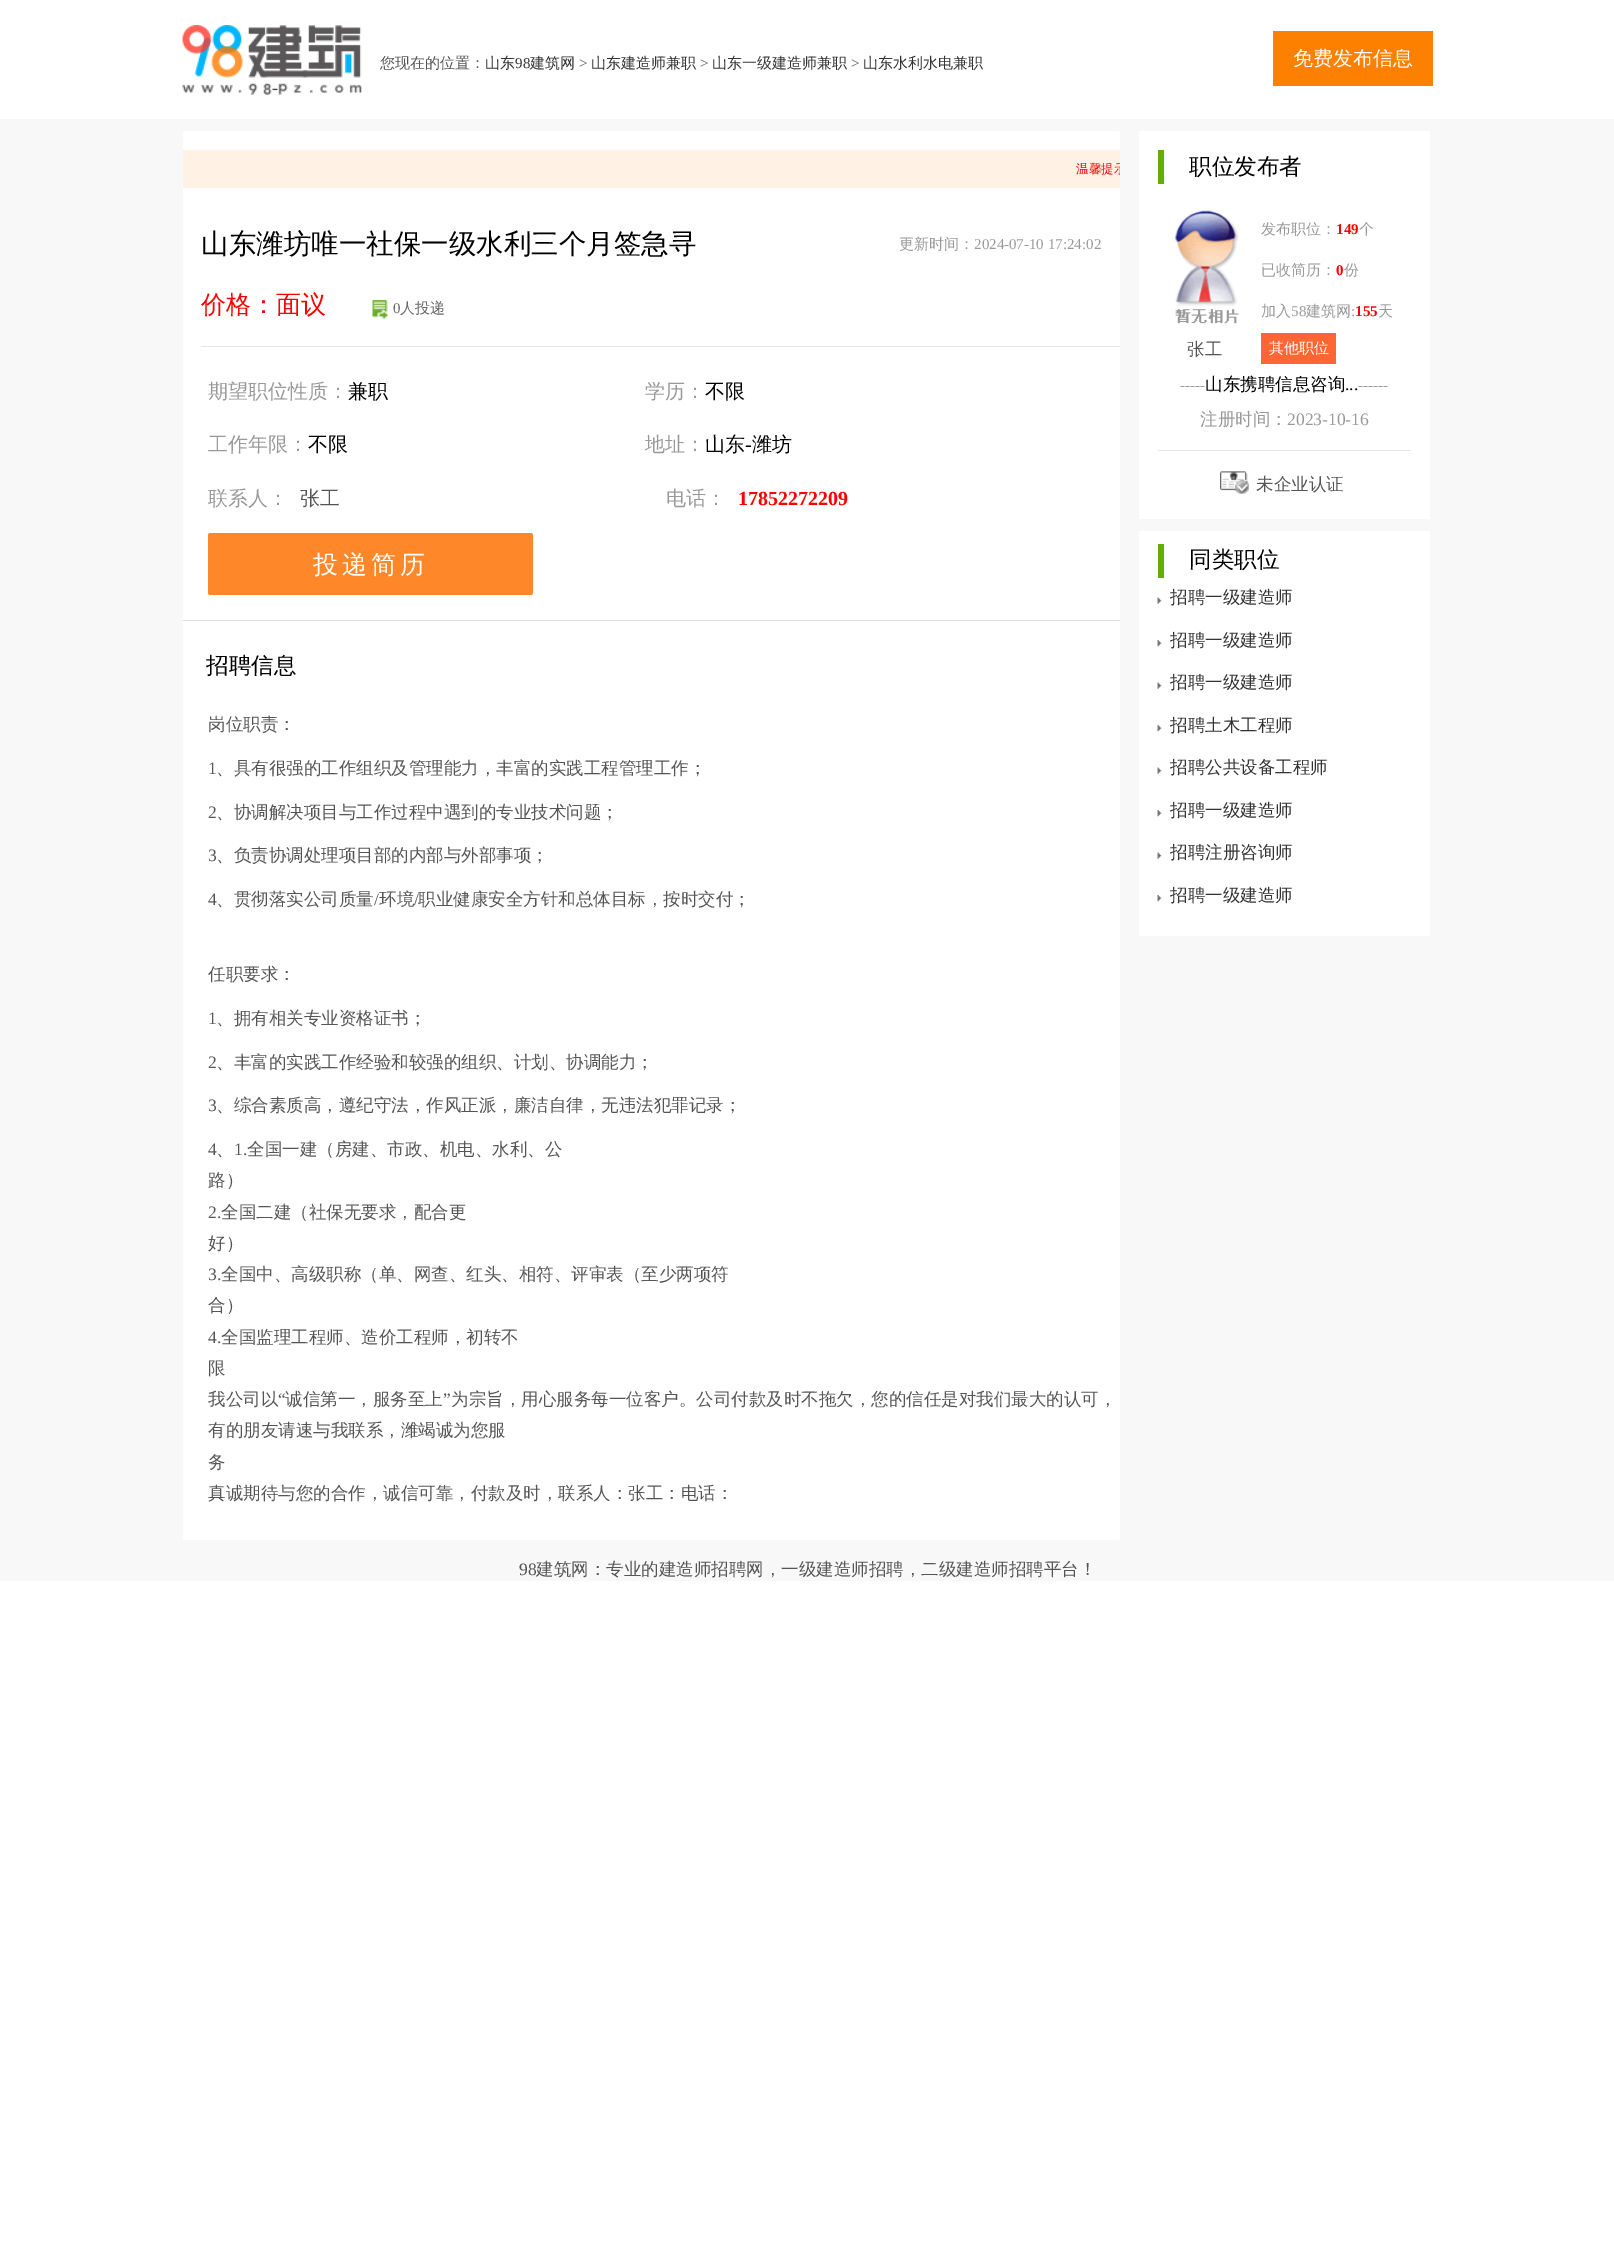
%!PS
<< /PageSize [1614 2258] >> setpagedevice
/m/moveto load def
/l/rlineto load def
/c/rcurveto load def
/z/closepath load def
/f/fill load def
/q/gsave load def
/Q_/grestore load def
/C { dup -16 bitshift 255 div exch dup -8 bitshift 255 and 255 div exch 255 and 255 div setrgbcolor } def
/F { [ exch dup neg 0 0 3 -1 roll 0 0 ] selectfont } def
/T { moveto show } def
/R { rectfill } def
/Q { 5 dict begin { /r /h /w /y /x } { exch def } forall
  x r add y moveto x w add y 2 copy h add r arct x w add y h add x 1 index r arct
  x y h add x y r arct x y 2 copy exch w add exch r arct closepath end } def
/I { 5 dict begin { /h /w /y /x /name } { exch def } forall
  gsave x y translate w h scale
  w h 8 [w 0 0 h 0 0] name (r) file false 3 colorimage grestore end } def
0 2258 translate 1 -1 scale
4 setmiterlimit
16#FFFFFF C
0 0 1614 2258 R
(1.rgb) 182 25 180 70 I
/WenQuanYiZenHei-Medium 15 F
16#555555 C
(您现在的位置：) 380 68 T
16#333333 C
(山东) 485 68 T
/LiberationSerif-Regular 15 F
(98) 515 68 T
/WenQuanYiZenHei-Medium 15 F
(建筑网) 530 68 T
/LiberationSerif-Regular 15 F
16#555555 C
(>) 579 68 T
/WenQuanYiZenHei-Medium 15 F
16#333333 C
(山东建造师兼职) 591 68 T
/LiberationSerif-Regular 15 F
16#555555 C
(>) 700 68 T
/WenQuanYiZenHei-Medium 15 F
16#333333 C
(山东一级建造师兼职) 712 68 T
/LiberationSerif-Regular 15 F
16#555555 C
(>) 851 68 T
/WenQuanYiZenHei-Medium 15 F
16#333333 C
(山东水利水电兼职) 863 68 T
16#FD8000 C
1273 31 160 55 R
/WenQuanYiZenHei-Medium 20 F
16#FFFFFF C
(免费发布信息) 1293 65 T
16#F8F8F8 C
0 119 1614 1462 R
16#FFFFFF C
183 131 937 1409 2.5 Q f
16#FFF2E5 C
183 150 937 38 R
q
183 150 937 38 rectclip
/WenQuanYiZenHei-Medium 12.5 F
16#FF0000 C
(温馨提示) 1076 173 T
Q_
/WenQuanYiZenHei-Medium 27.5 F
16#000000 C
(山东潍坊唯一社保一级水利三个月签急寻) 201 253 T
/WenQuanYiZenHei-Medium 15 F
16#999999 C
(更新时间：) 899 249 T
/LiberationSerif-Regular 15 F
(2024-07-10 17:24:02) 974 249 T
/WenQuanYiZenHei-Medium 25 F
16#FF0000 C
(价格：面议) 201 313 T
(2.rgb) 372 299 16 20 I
/LiberationSerif-Regular 15 F
16#666666 C
(0) 393 313 T
/WenQuanYiZenHei-Medium 15 F
(人投递) 400 313 T
16#E6E6E6 C
201 346 919 1 R
/WenQuanYiZenHei-Medium 20 F
16#999999 C
(期望职位性质：) 208 398 T
16#000000 C
(兼职) 348 398 T
16#999999 C
(学历：) 645 398 T
16#000000 C
(不限) 705 398 T
16#999999 C
(工作年限：) 208 451 T
16#000000 C
(不限) 308 451 T
16#999999 C
(地址：) 645 451 T
16#000000 C
(山东) 705 451 T
/LiberationSerif-Regular 20 F
(-) 745 451 T
/WenQuanYiZenHei-Medium 20 F
(潍坊) 752 451 T
16#DDDDDD C
183 620 937 1 R
16#999999 C
(联系人：) 208 505 T
16#555555 C
(张工) 300 505 T
16#999999 C
(电话：) 666 505 T
/LiberationSerif-Bold 20 F
16#FF0000 C
(17852272209) 738 505 T
16#FE8829 C
208 533 325 62 2.5 Q f
/WenQuanYiZenHei-Medium 25 F
16#FFFFFF C
313 573 m 4 0 (投递简历) ashow
/WenQuanYiZenHei-Medium 22.5 F
16#000000 C
(招聘信息) 206 673 T
/WenQuanYiZenHei-Medium 17.5 F
16#555555 C
(岗位职责：) 208 730 T
/LiberationSerif-Regular 17.5 F
(1) 208 774 T
/WenQuanYiZenHei-Medium 17.5 F
(、具有很强的工作组织及管理能力，丰富的实践工程管理工作；) 216 774 T
/LiberationSerif-Regular 17.5 F
(2) 208 818 T
/WenQuanYiZenHei-Medium 17.5 F
(、协调解决项目与工作过程中遇到的专业技术问题；) 216 818 T
/LiberationSerif-Regular 17.5 F
(3) 208 861 T
/WenQuanYiZenHei-Medium 17.5 F
(、负责协调处理项目部的内部与外部事项；) 216 861 T
/LiberationSerif-Regular 17.5 F
(4) 208 905 T
/WenQuanYiZenHei-Medium 17.5 F
(、贯彻落实公司质量) 216 905 T
/LiberationSerif-Regular 17.5 F
(/) 374 905 T
/WenQuanYiZenHei-Medium 17.5 F
(环境) 379 905 T
/LiberationSerif-Regular 17.5 F
(/) 414 905 T
/WenQuanYiZenHei-Medium 17.5 F
(职业健康安全方针和总体目标，按时交付；) 418 905 T
(任职要求：) 208 980 T
/LiberationSerif-Regular 17.5 F
(1) 208 1024 T
/WenQuanYiZenHei-Medium 17.5 F
(、拥有相关专业资格证书；) 216 1024 T
/LiberationSerif-Regular 17.5 F
(2) 208 1068 T
/WenQuanYiZenHei-Medium 17.5 F
(、丰富的实践工作经验和较强的组织、计划、协调能力；) 216 1068 T
/LiberationSerif-Regular 17.5 F
(3) 208 1111 T
/WenQuanYiZenHei-Medium 17.5 F
(、综合素质高，遵纪守法，作风正派，廉洁自律，无违法犯罪记录；) 216 1111 T
/LiberationSerif-Regular 17.5 F
(4) 208 1155 T
/WenQuanYiZenHei-Medium 17.5 F
(、) 216 1155 T
/LiberationSerif-Regular 17.5 F
(1.) 234 1155 T
/WenQuanYiZenHei-Medium 17.5 F
(全国一建（房建、市政、机电、水利、公) 247 1155 T
(路）) 208 1186 T
/LiberationSerif-Regular 17.5 F
(2.) 208 1218 T
/WenQuanYiZenHei-Medium 17.5 F
(全国二建（社保无要求，配合更) 221 1218 T
(好）) 208 1249 T
/LiberationSerif-Regular 17.5 F
(3.) 208 1280 T
/WenQuanYiZenHei-Medium 17.5 F
(全国中、高级职称（单、网查、红头、相符、评审表（至少两项符) 221 1280 T
(合）) 208 1311 T
/LiberationSerif-Regular 17.5 F
(4.) 208 1343 T
/WenQuanYiZenHei-Medium 17.5 F
(全国监理工程师、造价工程师，初转不) 221 1343 T
(限) 208 1374 T
(我公司以) 208 1405 T
/LiberationSerif-Regular 17.5 F
(“) 278 1405 T
/WenQuanYiZenHei-Medium 17.5 F
(诚信第一，服务至上) 285 1405 T
/LiberationSerif-Regular 17.5 F
(”) 443 1405 T
/WenQuanYiZenHei-Medium 17.5 F
(为宗旨，用心服务每一位客户。公司付款及时不拖欠，您的信任是对我们最大的认可，) 451 1405 T
(有的朋友请速与我联系，潍竭诚为您服) 208 1436 T
(务) 208 1468 T
(真诚期待与您的合作，诚信可靠，付款及时，联系人：张工：电话：) 208 1499 T
16#FFFFFF C
1141.5 131 m 288.5 0 l 0 388 l -291 0 l 0 -385.5 l 0 -1.5 1 -2.5 2.5 -2.5 c z f
16#62AF01 C
1158 150 6 34 R
/WenQuanYiZenHei-Medium 22.5 F
16#000000 C
(职位发布者) 1189 174 T
(3.rgb) 1174 210 65 114 I
/WenQuanYiZenHei-Medium 17.5 F
16#555555 C
(张工) 1187 355 T
/WenQuanYiZenHei-Medium 15 F
16#999999 C
(发布职位：) 1261 234 T
/LiberationSerif-Bold 15 F
16#FF0000 C
(149) 1336 234 T
/WenQuanYiZenHei-Medium 15 F
16#999999 C
(个) 1359 234 T
(已收简历：) 1261 275 T
/LiberationSerif-Bold 15 F
16#FF0000 C
(0) 1336 275 T
/WenQuanYiZenHei-Medium 15 F
16#999999 C
(份) 1344 275 T
(加入) 1261 316 T
/LiberationSerif-Regular 15 F
(58) 1291 316 T
/WenQuanYiZenHei-Medium 15 F
(建筑网) 1306 316 T
/LiberationSerif-Regular 15 F
(:) 1351 316 T
/LiberationSerif-Bold 15 F
16#FF0000 C
(155) 1355 316 T
/WenQuanYiZenHei-Medium 15 F
16#999999 C
(天) 1378 316 T
16#FF6633 C
1261 333 75 31 R
16#FFFFFF C
(其他职位) 1269 353 T
/LiberationSerif-Regular 15 F
16#999999 C
(-----) 1180 390 T
/WenQuanYiZenHei-Medium 17.5 F
16#000000 C
(山东携聘信息咨询) 1205 390 T
/LiberationSerif-Regular 15 F
16#999999 C
(------) 1358 390 T
/LiberationSerif-Regular 17.5 F
16#000000 C
(...) 1345 390 T
/WenQuanYiZenHei-Medium 17.5 F
16#999999 C
(注册时间：) 1200 425 T
/LiberationSerif-Regular 17.5 F
(2023-10-16) 1287 425 T
16#E6E6E6 C
1158 450 253 1 R
(4.rgb) 1220 471 29 23 I
/WenQuanYiZenHei-Medium 17.5 F
16#555555 C
(未企业认证) 1256 490 T
16#FFFFFF C
1139 531 291 405 R
16#62AF01 C
1158 544 6 34 R
/WenQuanYiZenHei-Medium 22.5 F
16#000000 C
(同类职位) 1189 567 T
(5.rgb) 1157 597 5 7 I
/WenQuanYiZenHei-Medium 17.5 F
16#333333 C
(招聘一级建造师) 1170 603 T
(6.rgb) 1157 640 5 7 I
(招聘一级建造师) 1170 646 T
(5.rgb) 1157 682 5 7 I
(招聘一级建造师) 1170 688 T
(6.rgb) 1157 725 5 7 I
(招聘土木工程师) 1170 731 T
(5.rgb) 1157 767 5 7 I
(招聘公共设备工程师) 1170 773 T
(6.rgb) 1157 810 5 7 I
(招聘一级建造师) 1170 816 T
(5.rgb) 1157 852 5 7 I
(招聘注册咨询师) 1170 858 T
(6.rgb) 1157 895 5 7 I
(招聘一级建造师) 1170 901 T
/LiberationSerif-Regular 17.5 F
16#555555 C
(98) 519 1575 T
/WenQuanYiZenHei-Medium 17.5 F
(建筑网：专业的建造师招聘网，一级建造师招聘，二级建造师招聘平台！) 536 1575 T
showpage
